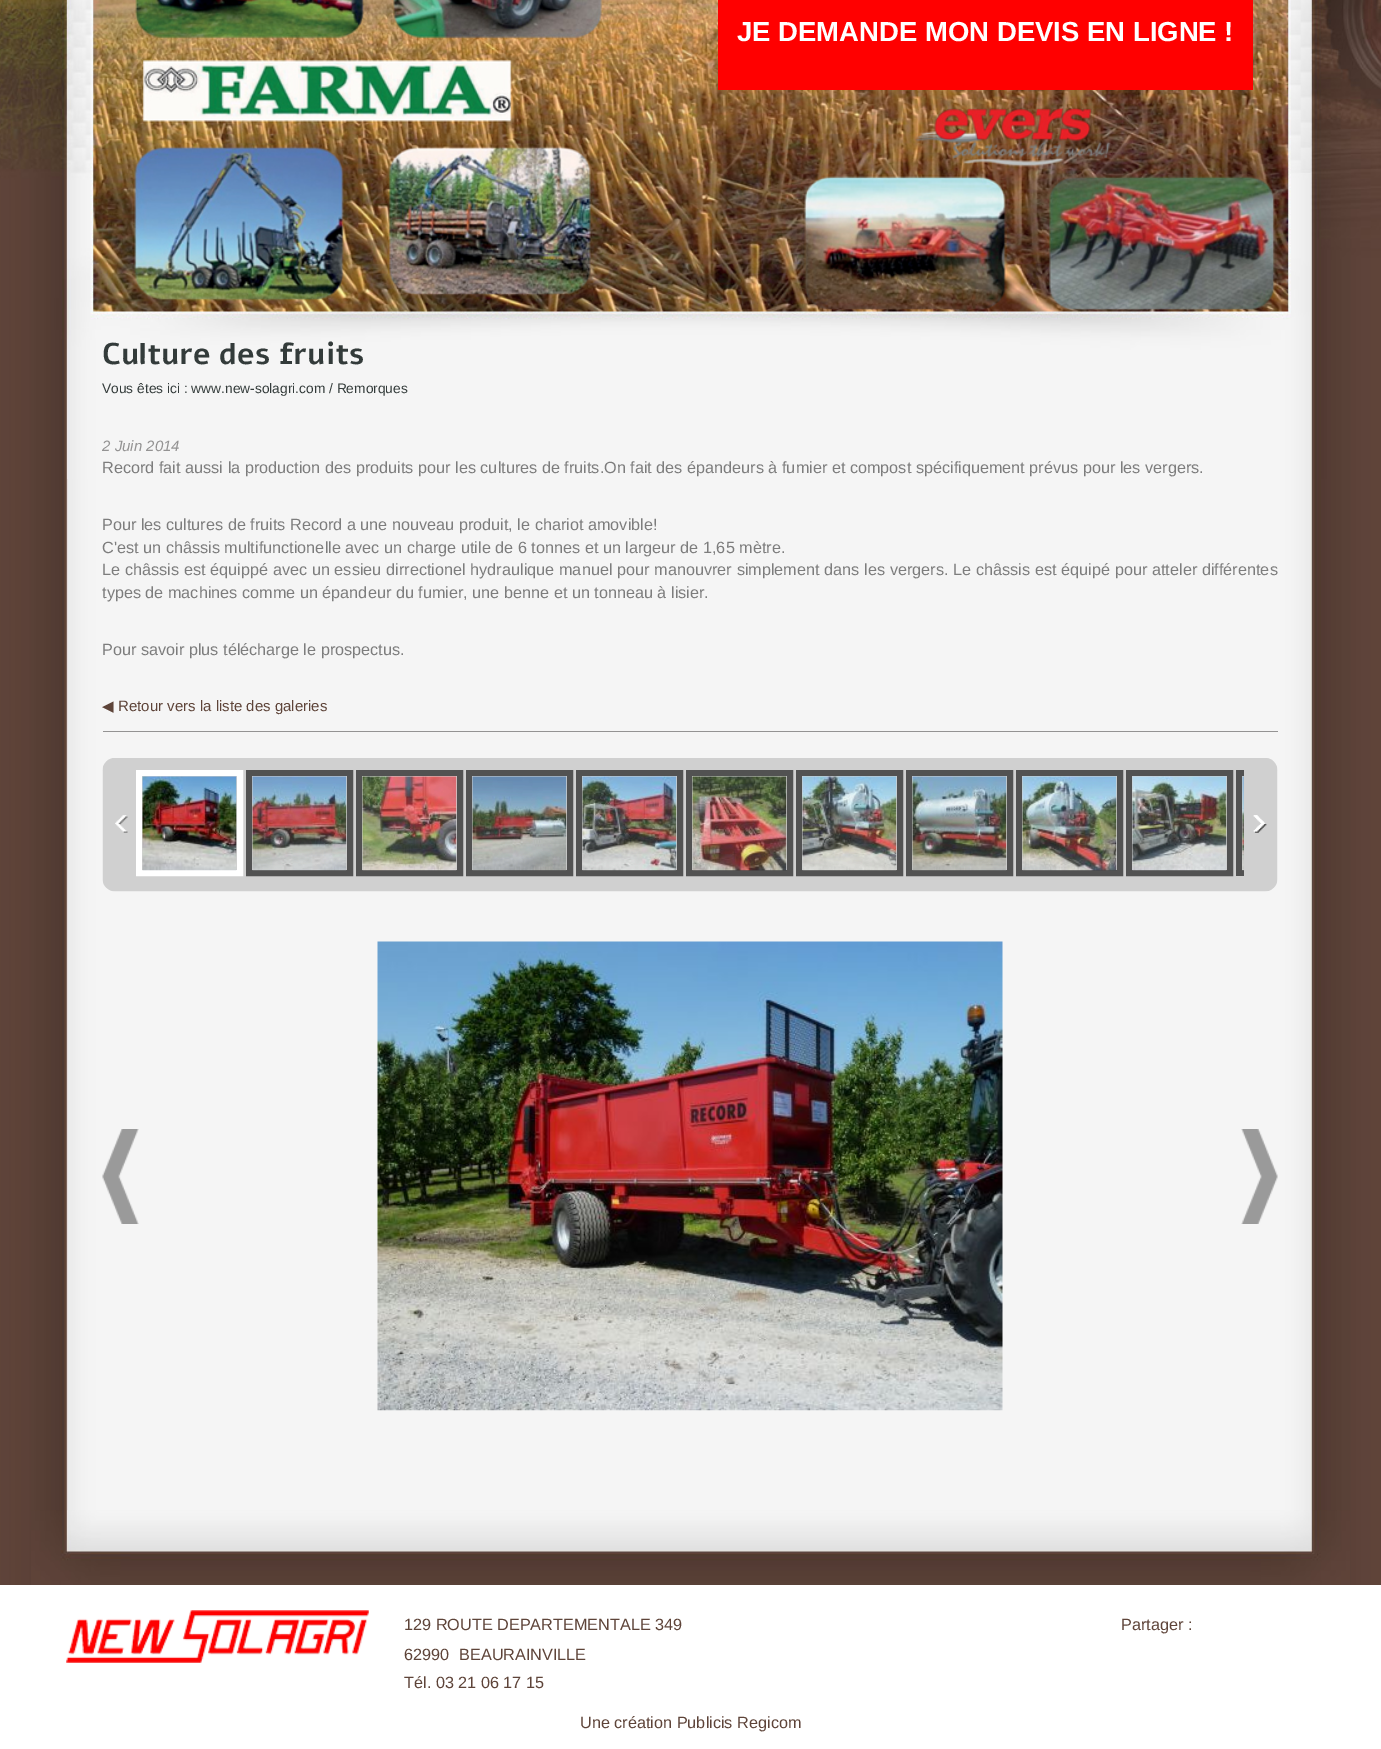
%!PS
<< /PageSize [1381 1749] >> setpagedevice
/m/moveto load def
/q/gsave load def
/Q_/grestore load def
/w/setlinewidth load def
/C { dup -16 bitshift 255 div exch dup -8 bitshift 255 and 255 div exch 255 and 255 div setrgbcolor } def
/F { [ exch dup neg 0 0 3 -1 roll 0 0 ] selectfont } def
/T { moveto show } def
/R { rectfill } def
/I { 5 dict begin { /h /w /y /x /name } { exch def } forall
  gsave x y translate w h scale
  w h 8 [w 0 0 h 0 0] name (r) file false 3 colorimage grestore end } def
0 1749 translate 1 -1 scale
4 setmiterlimit
16#FFFFFF C
0 0 1381 1749 R
(1.rgb) 0 479 1381 1106 I
(2.rgb) 0 0 1381 479 I
16#FF0000 C
718 0 535 90 R
/LiberationSans-Bold 27.5 F
16#FFFFFF C
(JE DEMANDE MON DEVIS EN LIGNE !) 737 41 T
/Alef-Bold 30 F
16#333B3A C
(Culture des fruits) 102 364 T
/LiberationSans-Regular 13.75 F
(Vous êtes ici : www.new-solagri.com / Remorques) 102 393 T
16#949393 C
103 731 1175 1 R
/LiberationSans-Italic 15 F
(2 Juin 2014) 102 451 T
/LiberationSans-Regular 16.25 F
16#7D7D7D C
(Record fait aussi la production des produits pour les cultures de fruits.On fait des épandeurs à fumier et compost spécifiquement prévus pour les vergers.) 102 473 T
(Pour les cultures de fruits Record a une nouveau produit, le chariot amovible!) 102 530 T
(C'est un châssis multifunctionelle avec un charge utile de 6 tonnes et un largeur de 1,65 mètre.) 102 553 T
102 575 m .2 0 32 (Le châssis est équippé avec un essieu dirrectionel hydraulique manuel pour manouvrer simplement dans les vergers. Le châssis est équipé pour atteler différentes) widthshow
(types de machines comme un épandeur du fumier, une benne et un tonneau à lisier.) 102 598 T
(Pour savoir plus télécharge le prospectus.) 102 655 T
/DejaVuSans-Regular 15 F
16#5E4439 C
(◀) 102 711 T
/LiberationSans-Regular 15 F
(Retour vers la liste des galeries) 118 711 T
(3.rgb) 102 758 1176 134 I
16#FFFFFF C
6 w
139 773 101 100 rectstroke
(4.rgb) 142 776 95 95 I
16#525252 C
249 773 101 100 rectstroke
(5.rgb) 252 776 95 95 I
359 773 101 100 rectstroke
(6.rgb) 362 776 95 95 I
469 773 101 100 rectstroke
(7.rgb) 472 776 95 95 I
579 773 101 100 rectstroke
(8.rgb) 582 776 95 95 I
689 773 101 100 rectstroke
(9.rgb) 692 776 95 95 I
799 773 101 100 rectstroke
(10.rgb) 802 776 95 95 I
909 773 101 100 rectstroke
(11.rgb) 912 776 95 95 I
1019 773 101 100 rectstroke
(12.rgb) 1022 776 95 95 I
1129 773 101 100 rectstroke
(13.rgb) 1132 776 95 95 I
(16.rgb) 1253 815 14 18 I
q
136 770 1108 106 rectclip
1239 773 101 100 rectstroke
Q_
(14.rgb) 1242 776 2 95 I
(15.rgb) 115 815 13 18 I
(17.rgb) 1253 815 14 18 I
(18.rgb) 377 941 626 470 I
(19.rgb) 102 1129 37 95 I
(20.rgb) 1241 1129 37 95 I
(21.rgb) 31 1510 1319 75 I
(22.rgb) 66 1610 303 53 I
/LiberationSans-Regular 16.25 F
16#5E4439 C
(129 ROUTE DEPARTEMENTALE 349) 404 1630 T
(62990) 404 1660 T
(BEAURAINVILLE) 459 1660 T
(Tél. 03 21 06 17 15) 404 1688 T
(Partager :) 1121 1630 T
(Une création Publicis Regicom) 580 1728 T
showpage
